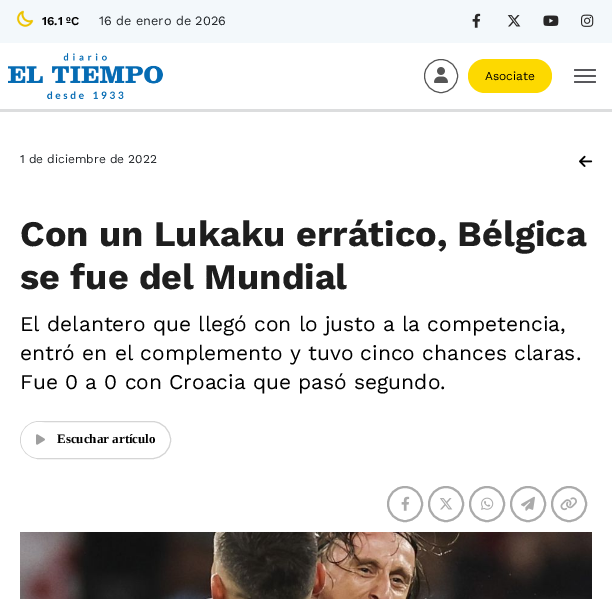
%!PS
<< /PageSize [612 599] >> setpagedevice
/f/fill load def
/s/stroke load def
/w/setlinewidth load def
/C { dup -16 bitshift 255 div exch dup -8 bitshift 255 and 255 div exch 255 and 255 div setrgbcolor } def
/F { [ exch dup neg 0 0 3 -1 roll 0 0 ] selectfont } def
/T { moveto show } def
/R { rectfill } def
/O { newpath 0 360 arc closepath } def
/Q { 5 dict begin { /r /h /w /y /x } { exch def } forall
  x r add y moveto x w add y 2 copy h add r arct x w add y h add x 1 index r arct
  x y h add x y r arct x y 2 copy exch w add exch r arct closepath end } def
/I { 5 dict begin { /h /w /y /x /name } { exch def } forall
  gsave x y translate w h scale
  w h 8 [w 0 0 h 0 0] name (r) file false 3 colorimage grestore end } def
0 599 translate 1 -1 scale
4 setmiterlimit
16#FFFFFF C
0 0 612 599 R
16#F3F8FB C
0 0 612 43 R
(1.rgb) 16 10 18 17 I
/WorkSans-SemiBold 12 F
16#000000 C
(16.1 ºC) 42 25 T
/WorkSans-Regular 12.75 F
16#212529 C
(16 de enero de 2026) 99 25 T
(2.rgb) 472 13 9 15 I
(3.rgb) 507 15 14 12 I
(4.rgb) 543 15 16 11 I
(5.rgb) 581 14 13 13 I
(6.rgb) 8 53 155 46 I
16#58585C C
574 69 22 2 1 Q f
574 75 22 2 1 Q f
574 81 22 2 1 Q f
16#555555 C
441 76 16.5 O s
(7.rgb) 434 67 14 16 I
16#FDD900 C
468 59 84 34 17 Q f
/WorkSans-Regular 12 F
16#000000 C
(Asociate) 485 80 T
16#DCDDDE C
0 109 612 3 R
16#212529 C
(1 de diciembre de 2022) 20 163 T
(8.rgb) 579 155 14 12 I
/WorkSans-Bold 36 F
16#1E1E1E C
(Con un Lukaku errático, Bélgica) 20 246 T
(se fue del Mundial) 20 289 T
/WorkSans-Regular 21 F
16#000000 C
(El delantero que llegó con lo justo a la competencia,) 20 331 T
(entró en el complemento y tuvo cinco chances claras.) 20 360 T
(Fue 0 a 0 con Croacia que pasó segundo.) 20 389 T
16#D5D5D5 C
20.5 421.5 150 37 18.5 Q s
16#FFFFFF C
39 440 18 O f
(9.rgb) 36 434 9 11 I
/LiberationSerif-Bold 13 F
16#000000 C
(Escuchar artículo) 57 443 T
16#ABABAB C
2 w
405 504 17 O s
(10.rgb) 401 496 9 15 I
446 504 17 O s
(11.rgb) 440 498 13 12 I
487 504 17 O s
(12.rgb) 481 497 13 13 I
528 504 17 O s
(13.rgb) 521 496 14 15 I
569 504 17 O s
(14.rgb) 560 497 17 14 I
(15.rgb) 20 532 572 67 I
showpage
